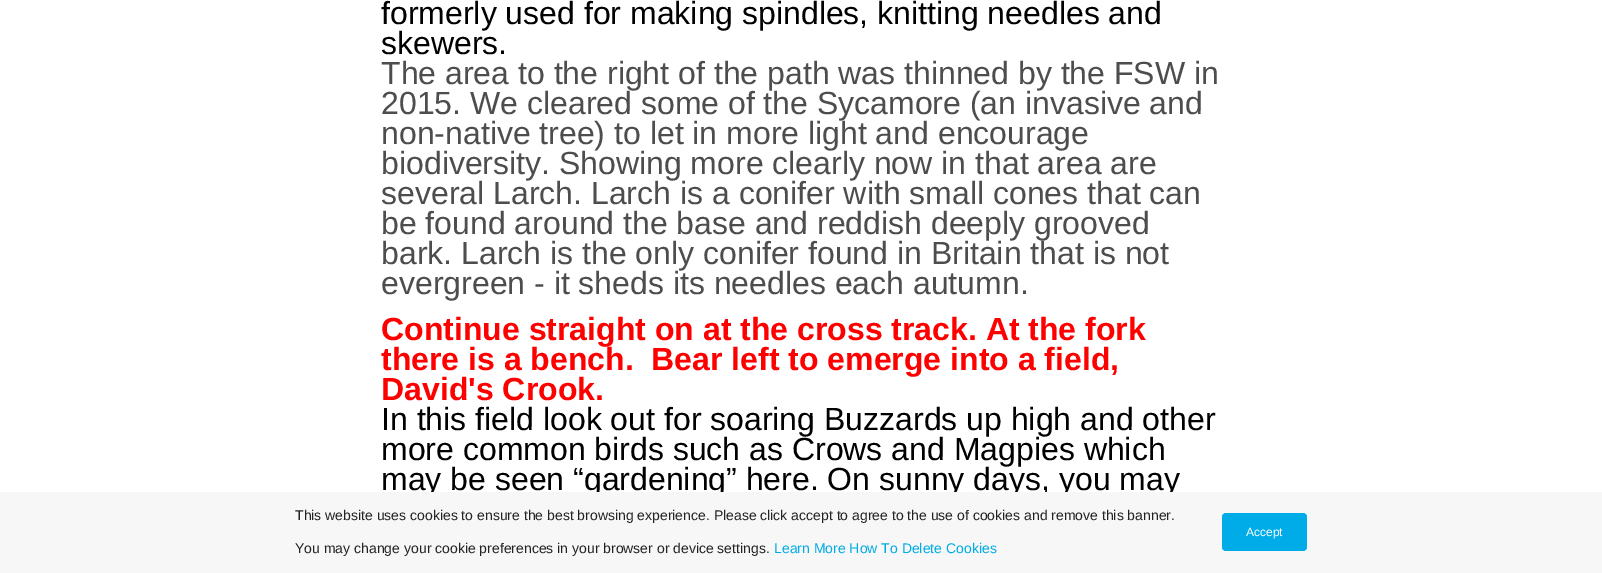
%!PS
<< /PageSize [1602 573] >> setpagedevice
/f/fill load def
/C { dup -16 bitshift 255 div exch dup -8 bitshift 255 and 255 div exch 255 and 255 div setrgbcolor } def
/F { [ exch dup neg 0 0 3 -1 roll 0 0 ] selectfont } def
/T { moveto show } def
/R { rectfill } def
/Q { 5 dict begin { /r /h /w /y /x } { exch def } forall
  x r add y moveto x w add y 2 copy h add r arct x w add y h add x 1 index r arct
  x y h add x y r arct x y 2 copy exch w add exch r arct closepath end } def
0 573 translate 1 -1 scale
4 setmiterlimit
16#FFFFFF C
0 0 1602 573 R
/LiberationSans-Regular 32 F
16#000000 C
(formerly used for making spindles, knitting needles and) 381 24 T
(skewers.) 381 54 T
16#4D4D4D C
(The area to the right of the path was thinned by the FSW in) 381 84 T
(2015. We cleared some of the Sycamore \(an invasive and) 381 114 T
(non-native tree\) to let in more light and encourage) 381 144 T
(biodiversity. Showing more clearly now in that area are) 381 174 T
(several Larch. Larch is a conifer with small cones that can) 381 204 T
(be found around the base and reddish deeply grooved) 381 234 T
(bark. Larch is the only conifer found in Britain that is not) 381 264 T
(evergreen - it sheds its needles each autumn.) 381 294 T
/LiberationSans-Bold 32 F
16#FF0000 C
(Continue straight on at the cross track. At the fork) 381 340 T
(there is a bench.  Bear left to emerge into a field,) 381 370 T
(David's Crook.) 381 400 T
/LiberationSans-Regular 32 F
16#000000 C
(In this field look out for soaring Buzzards up high and other) 381 430 T
(more common birds such as Crows and Magpies which) 381 460 T
(may be seen “gardening” here. On sunny days, you may) 381 490 T
16#F7F7F7 C
0 492 1602 81 R
/LiberationSans-Regular 14 F
16#222222 C
(This website uses cookies to ensure the best browsing experience. Please click accept to agree to the use of cookies and remove this banner.) 295 520 T
(You may change your cookie preferences in your browser or device settings.) 295 553 T
16#00ACE6 C
(Learn More How To Delete Cookies) 774 553 T
16#00ACE8 C
1222 513 85 38 4 Q f
/LiberationSans-Regular 12 F
16#FFFFFF C
(Accept) 1246 536 T
showpage
